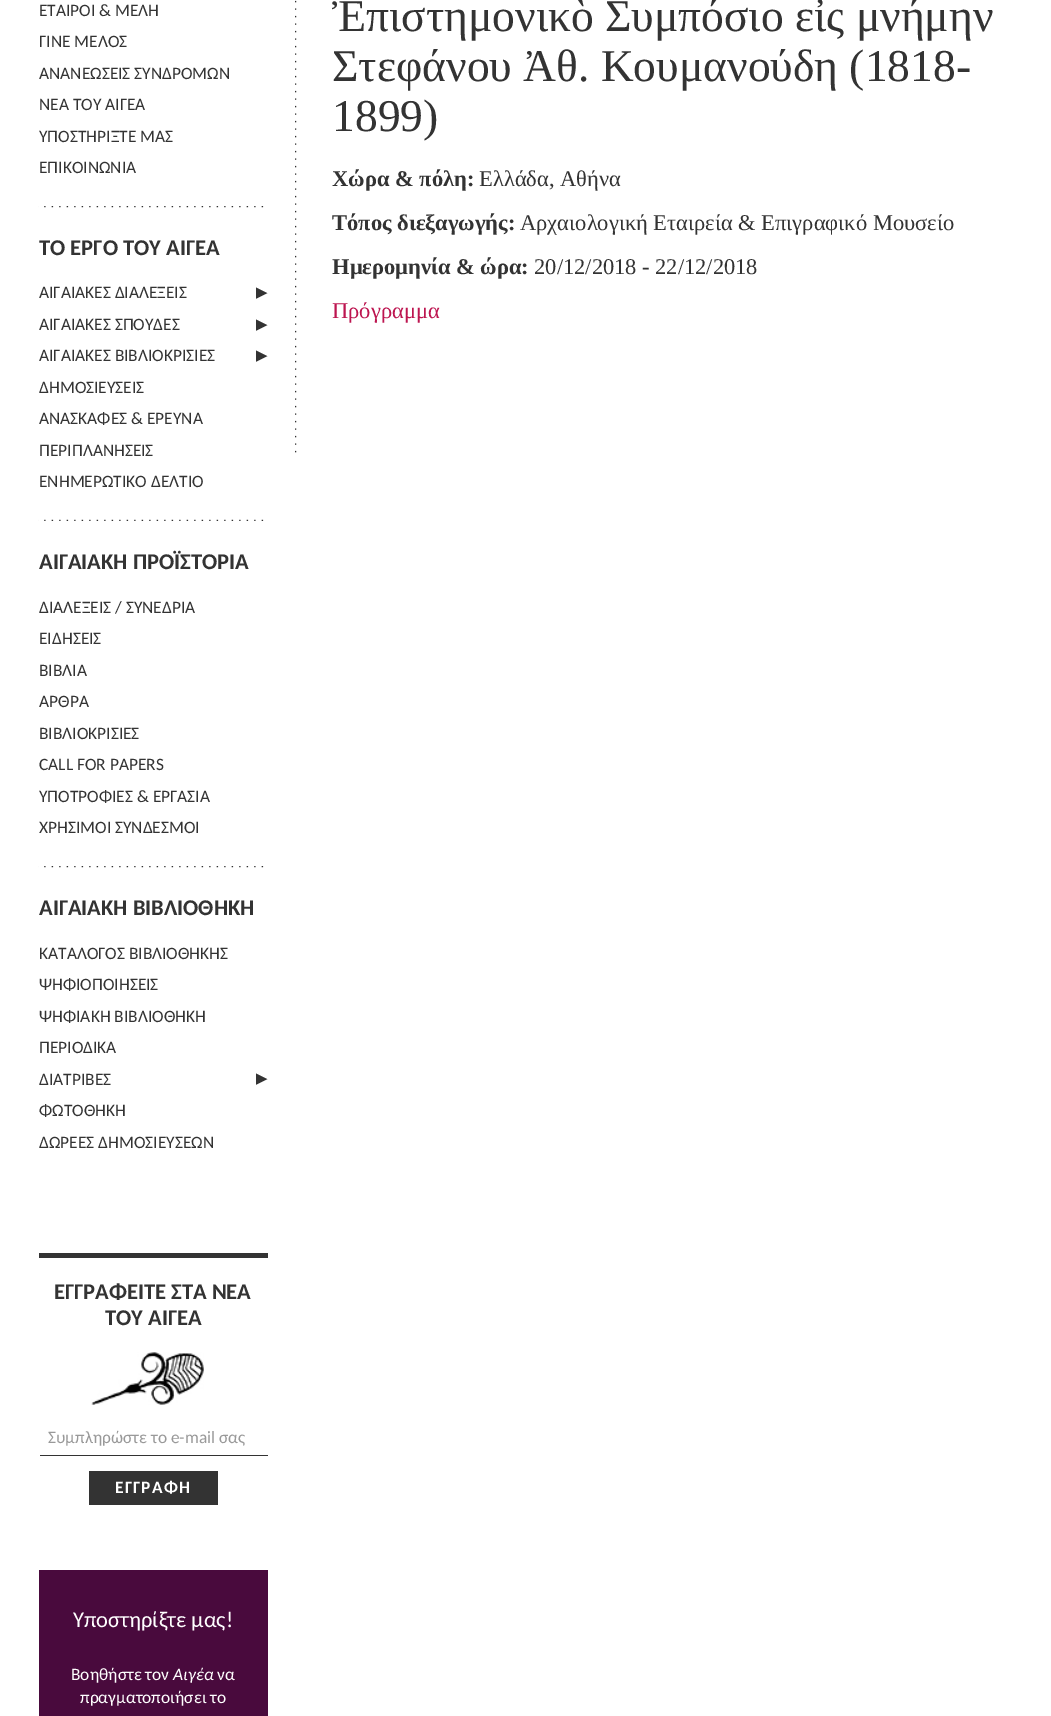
%!PS
<< /PageSize [1051 1716] >> setpagedevice
/m/moveto load def
/C { dup -16 bitshift 255 div exch dup -8 bitshift 255 and 255 div exch 255 and 255 div setrgbcolor } def
/F { [ exch dup neg 0 0 3 -1 roll 0 0 ] selectfont } def
/T { moveto show } def
/R { rectfill } def
/I { 5 dict begin { /h /w /y /x /name } { exch def } forall
  gsave x y translate w h scale
  w h 8 [w 0 0 h 0 0] name (r) file false 3 colorimage grestore end } def
0 1716 translate 1 -1 scale
4 setmiterlimit
16#FFFFFF C
0 0 1051 1716 R
(1.rgb) 38 206 226 2 I
/Carlito-Regular 17.4 F
16#333333 C
(ΕΤΑΙΡΟΙ & ΜΕΛΗ) 39 16 T
(ΓΙΝΕ ΜΕΛΟΣ) 39 47 T
(ΑΝΑΝΕΩΣΕΙΣ ΣΥΝΔΡΟΜΩΝ) 39 79 T
(ΝΕΑ ΤΟΥ ΑΙΓΕΑ) 39 110 T
(ΥΠΟΣΤΗΡΙΞΤΕ ΜΑΣ) 39 142 T
(ΕΠΙΚΟΙΝΩΝΙΑ) 39 173 T
/Carlito-Bold 22.5 F
(ΤΟ ΕΡΓΟ ΤΟΥ ΑΙΓΕΑ) 39 255 T
(2.rgb) 38 519 226 2 I
/Carlito-Regular 17.4 F
(ΑΙΓΑΙΑΚΕΣ ΔΙΑΛΕΞΕΙΣ) 39 298 T
/DejaVuSans-Regular 15 F
(▶) 256 297 T
/Carlito-Regular 17.4 F
(ΑΙΓΑΙΑΚΕΣ ΣΠΟΥΔΕΣ) 39 330 T
/DejaVuSans-Regular 15 F
(▶) 256 329 T
/Carlito-Regular 17.4 F
(ΑΙΓΑΙΑΚΕΣ ΒΙΒΛΙΟΚΡΙΣΙΕΣ) 39 361 T
/DejaVuSans-Regular 15 F
(▶) 256 360 T
/Carlito-Regular 17.4 F
(ΔΗΜΟΣΙΕΥΣΕΙΣ) 39 393 T
(ΑΝΑΣΚΑΦΕΣ & ΕΡΕΥΝΑ) 39 424 T
(ΠΕΡΙΠΛΑΝΗΣΕΙΣ) 39 456 T
(ΕΝΗΜΕΡΩΤΙΚΟ ΔΕΛΤΙΟ) 39 487 T
/Carlito-Bold 22.5 F
(ΑΙΓΑΙΑΚΗ ΠΡΟΪΣΤΟΡΙΑ) 39 569 T
(1.rgb) 38 866 226 2 I
/Carlito-Regular 17.4 F
(ΔΙΑΛΕΞΕΙΣ / ΣΥΝΕΔΡΙΑ) 39 613 T
(ΕΙΔΗΣΕΙΣ) 39 644 T
(ΒΙΒΛΙΑ) 39 676 T
(ΑΡΘΡΑ) 39 707 T
(ΒΙΒΛΙΟΚΡΙΣΙΕΣ) 39 739 T
(CALL FOR PAPERS) 39 770 T
(ΥΠΟΤΡΟΦΙΕΣ & ΕΡΓΑΣΙΑ) 39 802 T
(ΧΡΗΣΙΜΟΙ ΣΥΝΔΕΣΜΟΙ) 39 833 T
/Carlito-Bold 22.5 F
(ΑΙΓΑΙΑΚΗ ΒΙΒΛΙΟΘΗΚΗ) 39 915 T
/Carlito-Regular 17.4 F
(ΚΑΤΑΛΟΓΟΣ ΒΙΒΛΙΟΘΗΚΗΣ) 39 959 T
(ΨΗΦΙΟΠΟΙΗΣΕΙΣ) 39 990 T
(ΨΗΦΙΑΚΗ ΒΙΒΛΙΟΘΗΚΗ) 39 1022 T
(ΠΕΡΙΟΔΙΚΑ) 39 1053 T
(ΔΙΑΤΡΙΒΕΣ) 39 1085 T
/DejaVuSans-Regular 15 F
(▶) 256 1083 T
/Carlito-Regular 17.4 F
(ΦΩΤΟΘΗΚΗ) 39 1116 T
(ΔΩΡΕΕΣ ΔΗΜΟΣΙΕΥΣΕΩΝ) 39 1148 T
39 1253 229 5 R
/Carlito-Bold 22.5 F
(ΕΓΓΡΑΦΕΙΤΕ ΣΤΑ ΝΕΑ) 54 1299 T
(ΤΟΥ ΑΙΓΕΑ) 105 1325 T
(3.rgb) 91 1352 113 53 I
39 1455 229 1 R
16#FFFFFF C
39 1455 1 1 R
/Carlito-Regular 17.4 F
16#999999 C
(Συμπληρώστε το e-mail σας) 48 1443 T
16#333333 C
89 1471 129 34 R
/Carlito-Bold 17.4 F
16#FFFFFF C
115 1493 m 1.25 0 (ΕΓΓΡΑΦΗ) ashow
16#490A3D C
39 1570 229 146 R
/Carlito-Regular 22.5 F
16#FFFFFF C
(Υποστηρίξτε μας!) 73 1627 T
/Carlito-Regular 17.4 F
(Βοηθήστε τον) 71 1680 T
/Carlito-Italic 17.4 F
(Αιγέα) 173 1680 T
/Carlito-Regular 17.4 F
(να) 217 1680 T
(πραγματοποιήσει το) 80 1703 T
(4.rgb) 295 0 2 453 I
/LiberationSerif-Regular 45.5 F
16#333333 C
(Ἐπιστημονικὸ Συμπόσιο εἰς μνήμην) 332 31 T
(Στεφάνου Ἀθ. Κουμανούδη \(1818-) 332 81 T
(1899\)) 332 131 T
/LiberationSerif-Bold 22.5 F
(Χώρα & πόλη:) 332 186 T
/LiberationSerif-Regular 22.5 F
(Ελλάδα, Αθήνα) 479 186 T
/LiberationSerif-Bold 22.5 F
(Τόπος διεξαγωγής:) 332 230 T
/LiberationSerif-Regular 22.5 F
(Αρχαιολογική Εταιρεία & Επιγραφικό Μουσείο) 520 230 T
/LiberationSerif-Bold 22.5 F
(Ημερομηνία & ώρα:) 332 274 T
/LiberationSerif-Regular 22.5 F
(20/12/2018 - 22/12/2018) 534 274 T
16#BD1550 C
(Πρόγραμμα) 332 318 T
showpage
